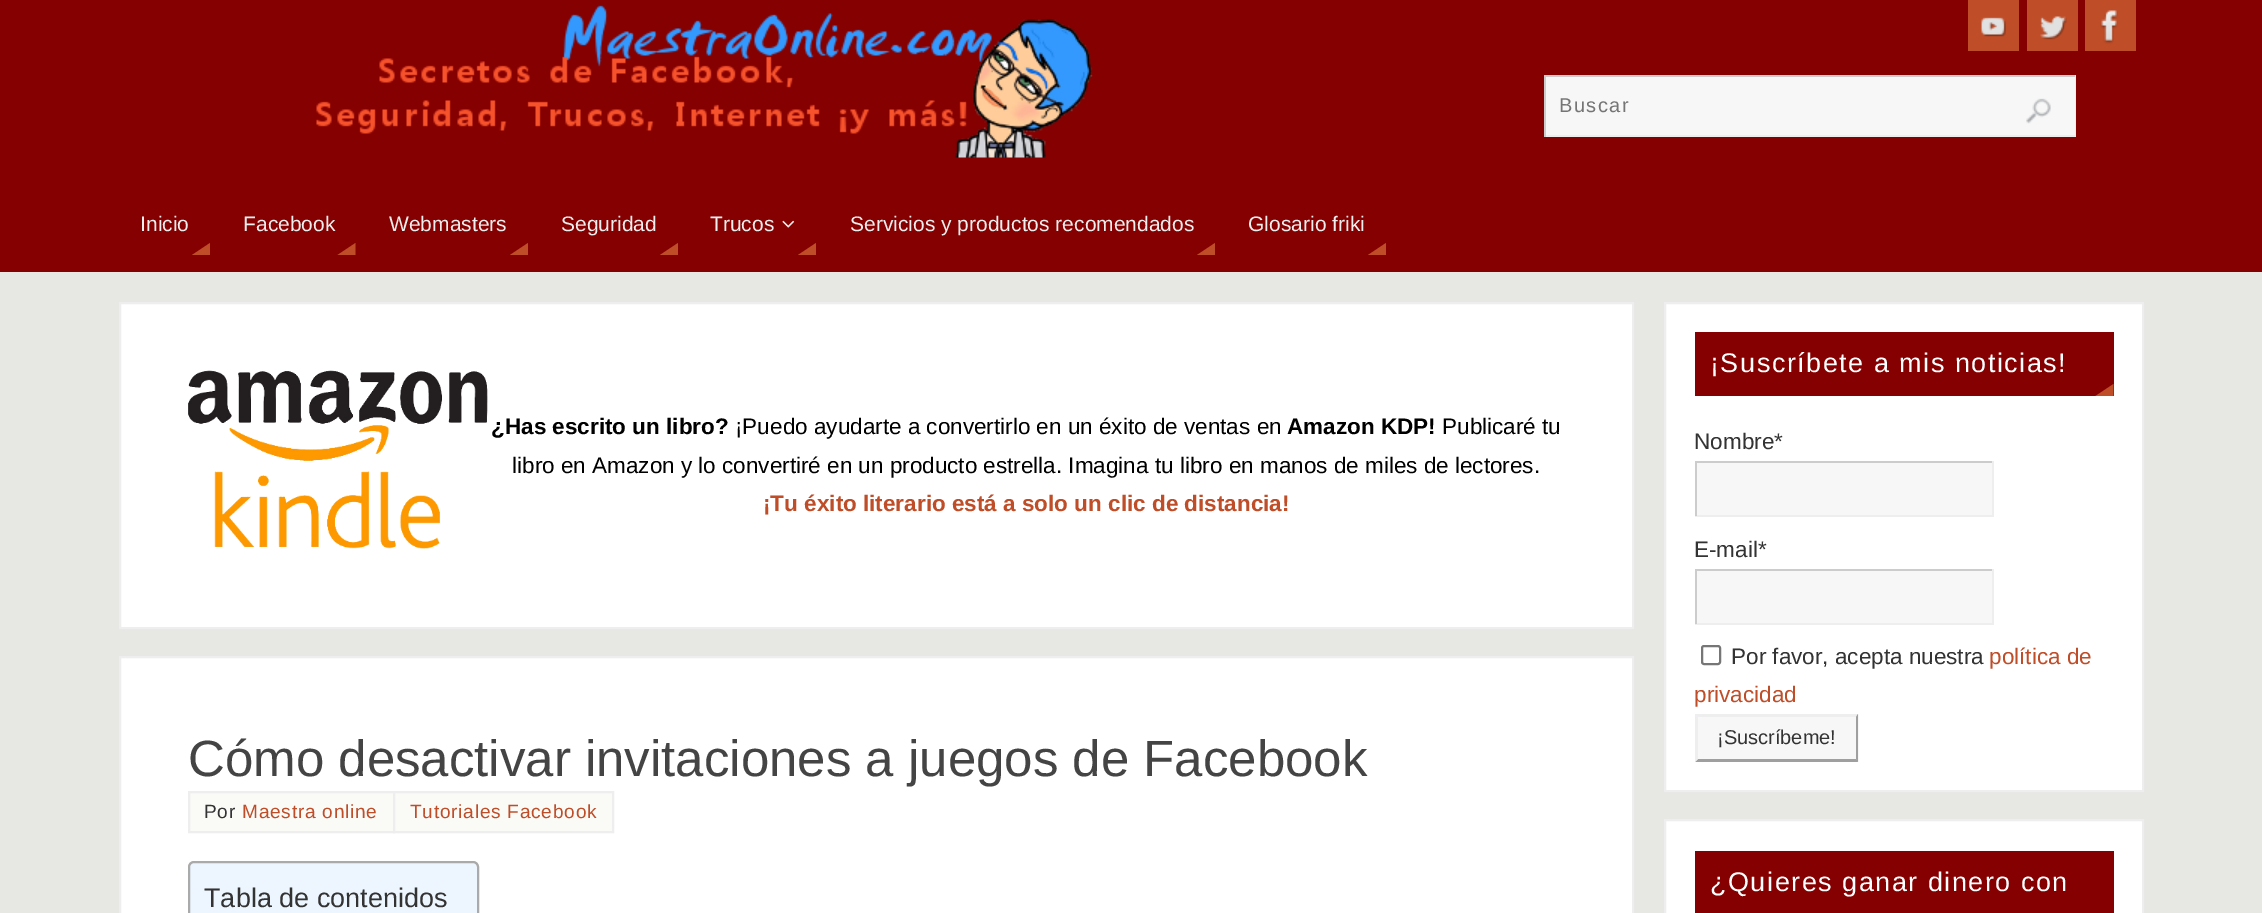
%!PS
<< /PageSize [2262 913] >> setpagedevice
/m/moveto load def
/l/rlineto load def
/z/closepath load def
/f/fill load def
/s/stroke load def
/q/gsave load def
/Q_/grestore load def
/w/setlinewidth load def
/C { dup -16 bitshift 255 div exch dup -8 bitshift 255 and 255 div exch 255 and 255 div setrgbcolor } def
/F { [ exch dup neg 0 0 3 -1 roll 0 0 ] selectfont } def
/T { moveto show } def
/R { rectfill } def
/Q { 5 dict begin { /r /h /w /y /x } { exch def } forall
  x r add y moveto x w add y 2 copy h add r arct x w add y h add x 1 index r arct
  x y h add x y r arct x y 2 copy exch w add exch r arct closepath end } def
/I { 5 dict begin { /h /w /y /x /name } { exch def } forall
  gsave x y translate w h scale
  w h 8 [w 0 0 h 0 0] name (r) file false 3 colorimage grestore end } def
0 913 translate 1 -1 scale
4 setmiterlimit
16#E7E7E4 C
0 0 2262 913 R
16#850000 C
0 0 2262 272 R
(1.rgb) 316 5 777 153 I
16#F7F7F7 C
1546 77 529 58 R
16#CCCCCC C
1544 75 532 2 R
16#EEEEEE C
2075 75 1 62 R
1544 135 532 2 R
16#CCCCCC C
1544 75 2 62 R
/LiberationSans-Regular 20 F
16#757575 C
1559 112 m 1.5 0 (Buscar) ashow
(2.rgb) 2026 98 25 26 I
16#BF4D28 C
1968 0 51 51 R
(3.rgb) 1981 17 25 20 I
2027 0 51 51 R
(4.rgb) 2040 16 27 24 I
2085 0 51 51 R
(5.rgb) 2100 10 18 34 I
/LiberationSans-Regular 21 F
16#EEEEEE C
(Inicio) 140 231 T
16#BF4D28 C
210 255 m -18 0 l 18 -12 l z f
16#EEEEEE C
(Facebook) 243 231 T
16#BF4D28 C
355.5 255 m -18 0 l 18 -12 l z f
16#EEEEEE C
(Webmasters) 389 231 T
16#BF4D28 C
528 255 m -18 0 l 18 -12 l z f
16#EEEEEE C
(Seguridad) 561 231 T
16#BF4D28 C
678 255 m -18 0 l 18 -12 l z f
16#EEEEEE C
(Trucos) 710 231 T
(6.rgb) 782 220 13 8 I
16#BF4D28 C
816 255 m -18 0 l 18 -12 l z f
16#EEEEEE C
(Servicios y productos recomendados) 850 231 T
16#BF4D28 C
1215 255 m -18 0 l 18 -12 l z f
16#EEEEEE C
(Glosario friki) 1248 231 T
16#BF4D28 C
1386 255 m -18 0 l 18 -12 l z f
16#FFFFFF C
120 303 m 1513 0 l 0 325 l -1513 0 l z q f Q_
16#EEEEEE C
2 w
s
(7.rgb) 188 370 300 179 I
/LiberationSans-Bold 22.5 F
16#000000 C
(¿Has escrito un libro?) 491 434 T
/LiberationSans-Regular 22.5 F
(¡Puedo ayudarte a convertirlo en un éxito de ventas en) 735 434 T
/LiberationSans-Bold 22.5 F
(Amazon KDP!) 1287 434 T
/LiberationSans-Regular 22.5 F
(Publicaré tu) 1442 434 T
(libro en Amazon y lo convertiré en un producto estrella. Imagina tu libro en manos de miles de lectores.) 512 473 T
/LiberationSans-Bold 22.5 F
16#BF4D28 C
(¡Tu éxito literario está a solo un clic de distancia!) 763 511 T
16#FFFFFF C
120 657 m 1513 0 l 0 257 l -1513 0 l z q f Q_
16#EEEEEE C
s
/LiberationSans-Regular 51 F
16#444444 C
(Cómo desactivar invitaciones a juegos de Facebook) 188 776 T
16#FAFAF7 C
189 792 m 205 0 l 0 40 l -205 0 l z q f Q_
16#EEEEEE C
s
/LiberationSans-Regular 19.1 F
16#333333 C
204 818 m .75 0 (Por) ashow
16#BF4D28 C
242 818 m .75 0 (Maestra online) ashow
16#FAFAF7 C
394 792 m 219 0 l 0 40 l -219 0 l z q f Q_
16#EEEEEE C
s
16#BF4D28 C
410 818 m .75 0 (Tutoriales Facebook) ashow
16#EDF6FF C
189 862 289 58 5 Q q f Q_
16#AAAAAA C
s
/LiberationSans-Regular 27 F
16#333333 C
(Tabla de contenidos) 204 907 T
16#FFFFFF C
1665 303 m 478 0 l 0 488 l -478 0 l z q f Q_
16#EEEEEE C
s
16#850000 C
1695 332 419 64 R
16#FFFFFF C
1710 372 m 1.5 0 (¡Suscríbete a mis noticias!) ashow
16#BF4D28 C
2113.5 396 m -18 0 l 18 -12 l z f
/LiberationSans-Regular 22.5 F
16#333333 C
(Nombre*) 1694 449 T
16#F7F7F7 C
1697 463 295 52 R
16#CCCCCC C
1695 461 299 2 R
16#EEEEEE C
1992 461 2 55 R
1695 515 299 2 R
16#CCCCCC C
1695 461 2 55 R
16#333333 C
(E-mail*) 1694 557 T
16#F7F7F7 C
1697 571 295 52 R
16#CCCCCC C
1695 569 299 2 R
16#EEEEEE C
1992 569 2 55 R
1695 623 299 2 R
16#CCCCCC C
1695 569 2 55 R
16#767676 C
1702 646 18 18 2 Q s
16#333333 C
(Por favor, acepta nuestra) 1731 664 T
16#BF4D28 C
(política de) 1989 664 T
(privacidad) 1694 702 T
16#F7F7F7 C
1695 714 164 48 R
16#EEEEEE C
1695 714 m 163 0 l -2 3 l -158 0 l z f
16#9F9F9F C
1858 714 m 0 48 l -2 -3 l 0 -42 l z f
1858 762 m -163 0 l 3 -3 l 158 0 l z f
16#EEEEEE C
1695 762 m 0 -48 l 3 3 l 0 42 l z f
/LiberationSans-Regular 20 F
16#333333 C
(¡Suscríbeme!) 1717 744 T
16#FFFFFF C
1665 820 m 478 0 l 0 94 l -478 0 l z q f Q_
16#EEEEEE C
s
16#850000 C
1695 851 419 62 R
/LiberationSans-Regular 27 F
16#FFFFFF C
1710 891 m 1.5 0 (¿Quieres ganar dinero con) ashow
showpage
